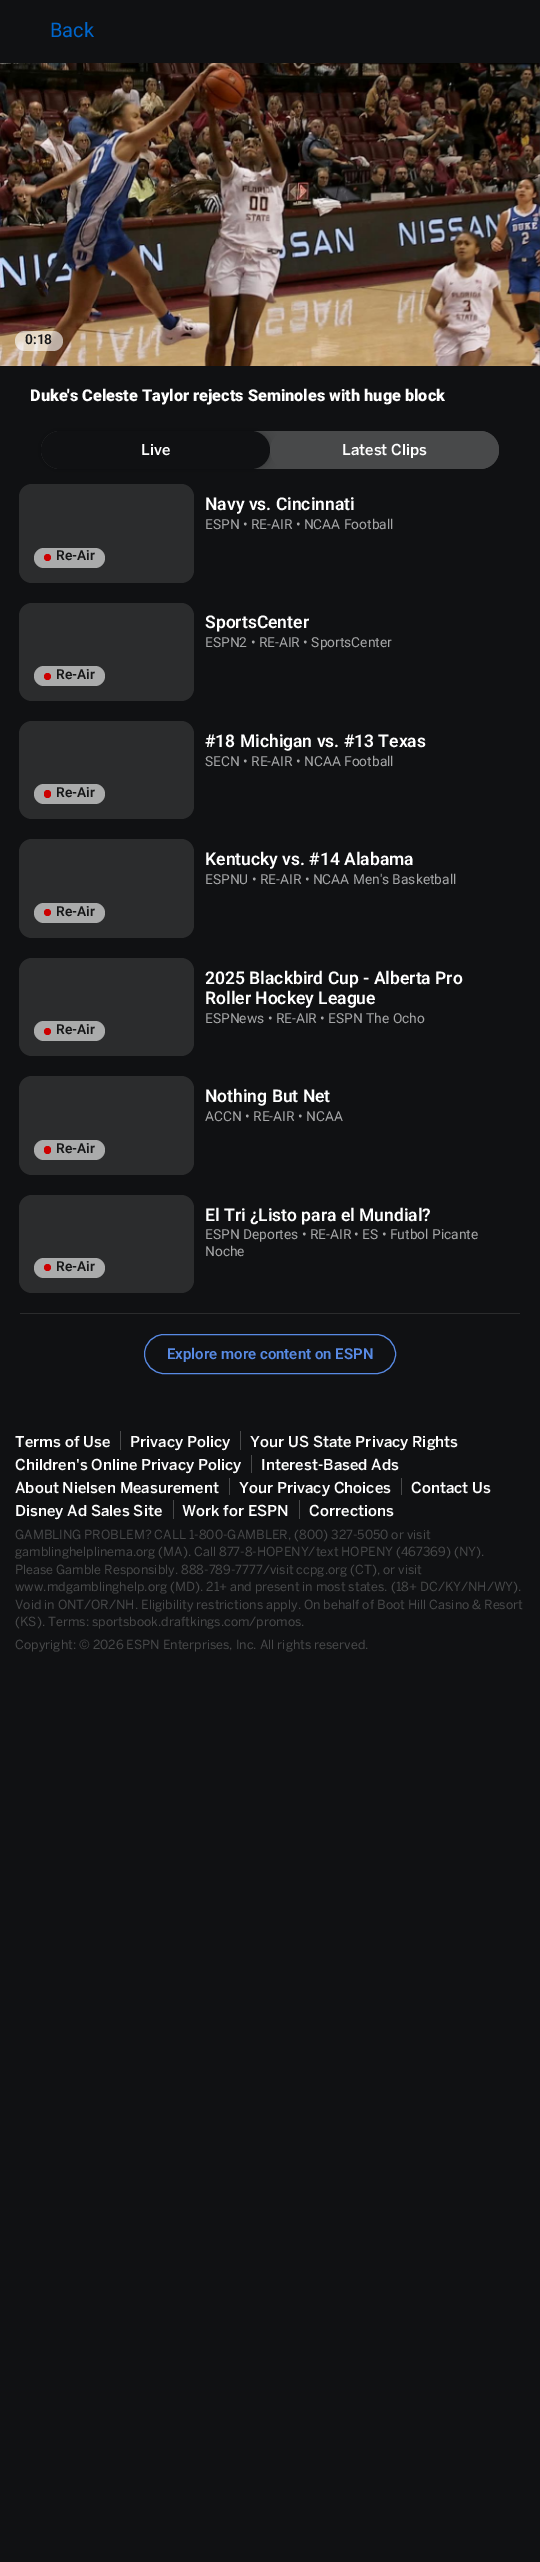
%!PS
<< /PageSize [540 2562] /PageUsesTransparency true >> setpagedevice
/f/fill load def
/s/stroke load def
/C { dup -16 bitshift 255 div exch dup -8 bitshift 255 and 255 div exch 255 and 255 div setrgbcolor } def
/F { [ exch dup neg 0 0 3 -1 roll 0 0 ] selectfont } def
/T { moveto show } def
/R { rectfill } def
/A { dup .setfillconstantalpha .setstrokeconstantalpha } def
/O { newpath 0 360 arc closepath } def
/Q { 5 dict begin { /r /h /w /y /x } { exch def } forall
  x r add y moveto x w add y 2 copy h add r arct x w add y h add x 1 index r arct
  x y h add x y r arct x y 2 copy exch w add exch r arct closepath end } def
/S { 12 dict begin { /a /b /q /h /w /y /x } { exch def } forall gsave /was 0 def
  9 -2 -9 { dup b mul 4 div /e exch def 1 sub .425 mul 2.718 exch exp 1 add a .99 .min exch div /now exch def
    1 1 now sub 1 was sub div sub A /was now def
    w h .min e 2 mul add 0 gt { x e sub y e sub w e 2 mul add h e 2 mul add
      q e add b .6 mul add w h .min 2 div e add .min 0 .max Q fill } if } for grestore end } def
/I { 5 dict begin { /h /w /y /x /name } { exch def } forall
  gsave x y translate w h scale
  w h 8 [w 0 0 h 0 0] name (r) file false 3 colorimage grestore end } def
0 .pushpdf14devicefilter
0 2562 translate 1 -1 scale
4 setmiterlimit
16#101113 C
0 0 540 2562 R
/Roboto-Regular 20 F
16#0066CC C
(Back) 50 37 T
(1.rgb) 0 63 540 303 I
0.6 A
16#FFFFFF C
15 331 48 20 10 Q f
/Roboto-SemiBold 13.75 F
1 A
16#151617 C
(0:18) 25 344 T
/Roboto-Black 16.25 F
16#FFFFFF C
(Duke's Celeste Taylor rejects Seminoles with huge block) 30 401 T
16#48494A C
41 431 458 38 19 Q f
16#000000 C
41 431 229 38 19 5 .25 S
16#101113 C
41 431 229 38 19 Q f
/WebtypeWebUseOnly-Medium 15 F
16#FFFFFF C
(Live) 141 455 T
16#48494A C
270 431 229 38 19 Q f
16#FFFFFF C
(Latest Clips) 342 455 T
/Roboto-SemiBold 17.5 F
(Navy vs. Cincinnati) 205 510 T
/Roboto-Regular 13.75 F
16#A5A6A7 C
(ESPN • RE-AIR • NCAA Football) 205 529 T
16#2B2C2D C
19 484 175 99 13 Q f
16#AAABAB C
34 548 71 20 10 Q f
16#CC0000 C
47.5 557.5 3.5 O f
/Roboto-SemiBold 13.75 F
16#151617 C
(Re-Air) 56 560 T
/Roboto-SemiBold 17.5 F
16#FFFFFF C
(SportsCenter) 205 628 T
/Roboto-Regular 13.75 F
16#A5A6A7 C
(ESPN2 • RE-AIR • SportsCenter) 205 647 T
16#2B2C2D C
19 603 175 98 13 Q f
16#AAABAB C
34 666 71 20 10 Q f
16#CC0000 C
47.5 676.5 3.5 O f
/Roboto-SemiBold 13.75 F
16#151617 C
(Re-Air) 56 679 T
/Roboto-SemiBold 17.5 F
16#FFFFFF C
(#18 Michigan vs. #13 Texas) 205 747 T
/Roboto-Regular 13.75 F
16#A5A6A7 C
(SECN • RE-AIR • NCAA Football) 205 766 T
16#2B2C2D C
19 721 175 98 13 Q f
16#AAABAB C
34 784 71 20 10 Q f
16#CC0000 C
44 790 7 8 3.5 Q f
/Roboto-SemiBold 13.75 F
16#151617 C
(Re-Air) 56 797 T
/Roboto-SemiBold 17.5 F
16#FFFFFF C
(Kentucky vs. #14 Alabama) 205 865 T
/Roboto-Regular 13.75 F
16#A5A6A7 C
(ESPNU • RE-AIR • NCAA Men's Basketball) 205 884 T
16#2B2C2D C
19 839 175 99 13 Q f
16#AAABAB C
34 903 71 20 10 Q f
16#CC0000 C
47.5 912.5 3.5 O f
/Roboto-SemiBold 13.75 F
16#151617 C
(Re-Air) 56 916 T
/Roboto-SemiBold 17.5 F
16#FFFFFF C
(2025 Blackbird Cup - Alberta Pro) 205 984 T
(Roller Hockey League) 205 1004 T
/Roboto-Regular 13.75 F
16#A5A6A7 C
(ESPNews • RE-AIR • ESPN The Ocho) 205 1023 T
16#2B2C2D C
19 958 175 98 13 Q f
16#AAABAB C
34 1021 71 20 10 Q f
16#CC0000 C
47.5 1031.5 3.5 O f
/Roboto-SemiBold 13.75 F
16#151617 C
(Re-Air) 56 1034 T
/Roboto-SemiBold 17.5 F
16#FFFFFF C
(Nothing But Net) 205 1102 T
/Roboto-Regular 13.75 F
16#A5A6A7 C
(ACCN • RE-AIR • NCAA) 205 1121 T
16#2B2C2D C
19 1076 175 99 13 Q f
16#AAABAB C
34 1140 71 20 10 Q f
16#CC0000 C
44 1146 7 8 3.5 Q f
/Roboto-SemiBold 13.75 F
16#151617 C
(Re-Air) 56 1153 T
/Roboto-SemiBold 17.5 F
16#FFFFFF C
(El Tri ¿Listo para el Mundial?) 205 1221 T
/Roboto-Regular 13.75 F
16#A5A6A7 C
(ESPN Deportes • RE-AIR • ES • Futbol Picante) 205 1239 T
(Noche) 205 1256 T
16#2B2C2D C
19 1195 175 98 13 Q f
16#AAABAB C
34 1258 71 20 10 Q f
16#CC0000 C
47.5 1267.5 3.5 O f
/Roboto-SemiBold 13.75 F
16#151617 C
(Re-Air) 56 1271 T
16#2B2C2D C
20 1313 500 1 R
16#588AE4 C
144.5 1334.5 251 39 19.5 Q s
/Roboto-SemiBold 15 F
(Explore more content on ESPN) 167 1359 T
/WebtypeWebUseOnly-Medium 15 F
16#FFFFFF C
(Terms of Use) 15 1447 T
16#48494A C
120 1431 1 19 R
16#FFFFFF C
(Privacy Policy) 130 1447 T
16#48494A C
240 1431 1 19 R
16#FFFFFF C
(Your US State Privacy Rights) 250 1447 T
(Children's Online Privacy Policy) 15 1470 T
16#48494A C
251 1455 1 18 R
16#FFFFFF C
(Interest-Based Ads) 261 1470 T
(About Nielsen Measurement) 15 1493 T
16#48494A C
229 1478 1 17 R
16#FFFFFF C
(Your Privacy Choices) 239 1493 T
16#48494A C
401 1478 1 17 R
16#FFFFFF C
(Contact Us) 411 1493 T
(Disney Ad Sales Site) 15 1516 T
16#48494A C
173 1500 1 19 R
16#FFFFFF C
(Work for ESPN) 182 1516 T
16#48494A C
299 1500 1 19 R
16#FFFFFF C
(Corrections) 309 1516 T
/WebtypeWebUseOnly-Regular 12.5 F
16#48494A C
(GAMBLING PROBLEM? CALL 1-800-GAMBLER, \(800\) 327-5050 or visit) 15 1539 T
(gamblinghelplinema.org \(MA\). Call 877-8-HOPENY/text HOPENY \(467369\) \(NY\).) 15 1556 T
(Please Gamble Responsibly. 888-789-7777/visit ccpg.org \(CT\), or visit) 15 1574 T
(www.mdgamblinghelp.org \(MD\). 21+ and present in most states. \(18+ DC/KY/NH/WY\).) 15 1591 T
(Void in ONT/OR/NH. Eligibility restrictions apply. On behalf of Boot Hill Casino & Resort) 15 1609 T
(\(KS\). Terms: sportsbook.draftkings.com/promos.) 15 1626 T
(Copyright: © 2026 ESPN Enterprises, Inc. All rights reserved.) 15 1649 T
.poppdf14devicefilter showpage
